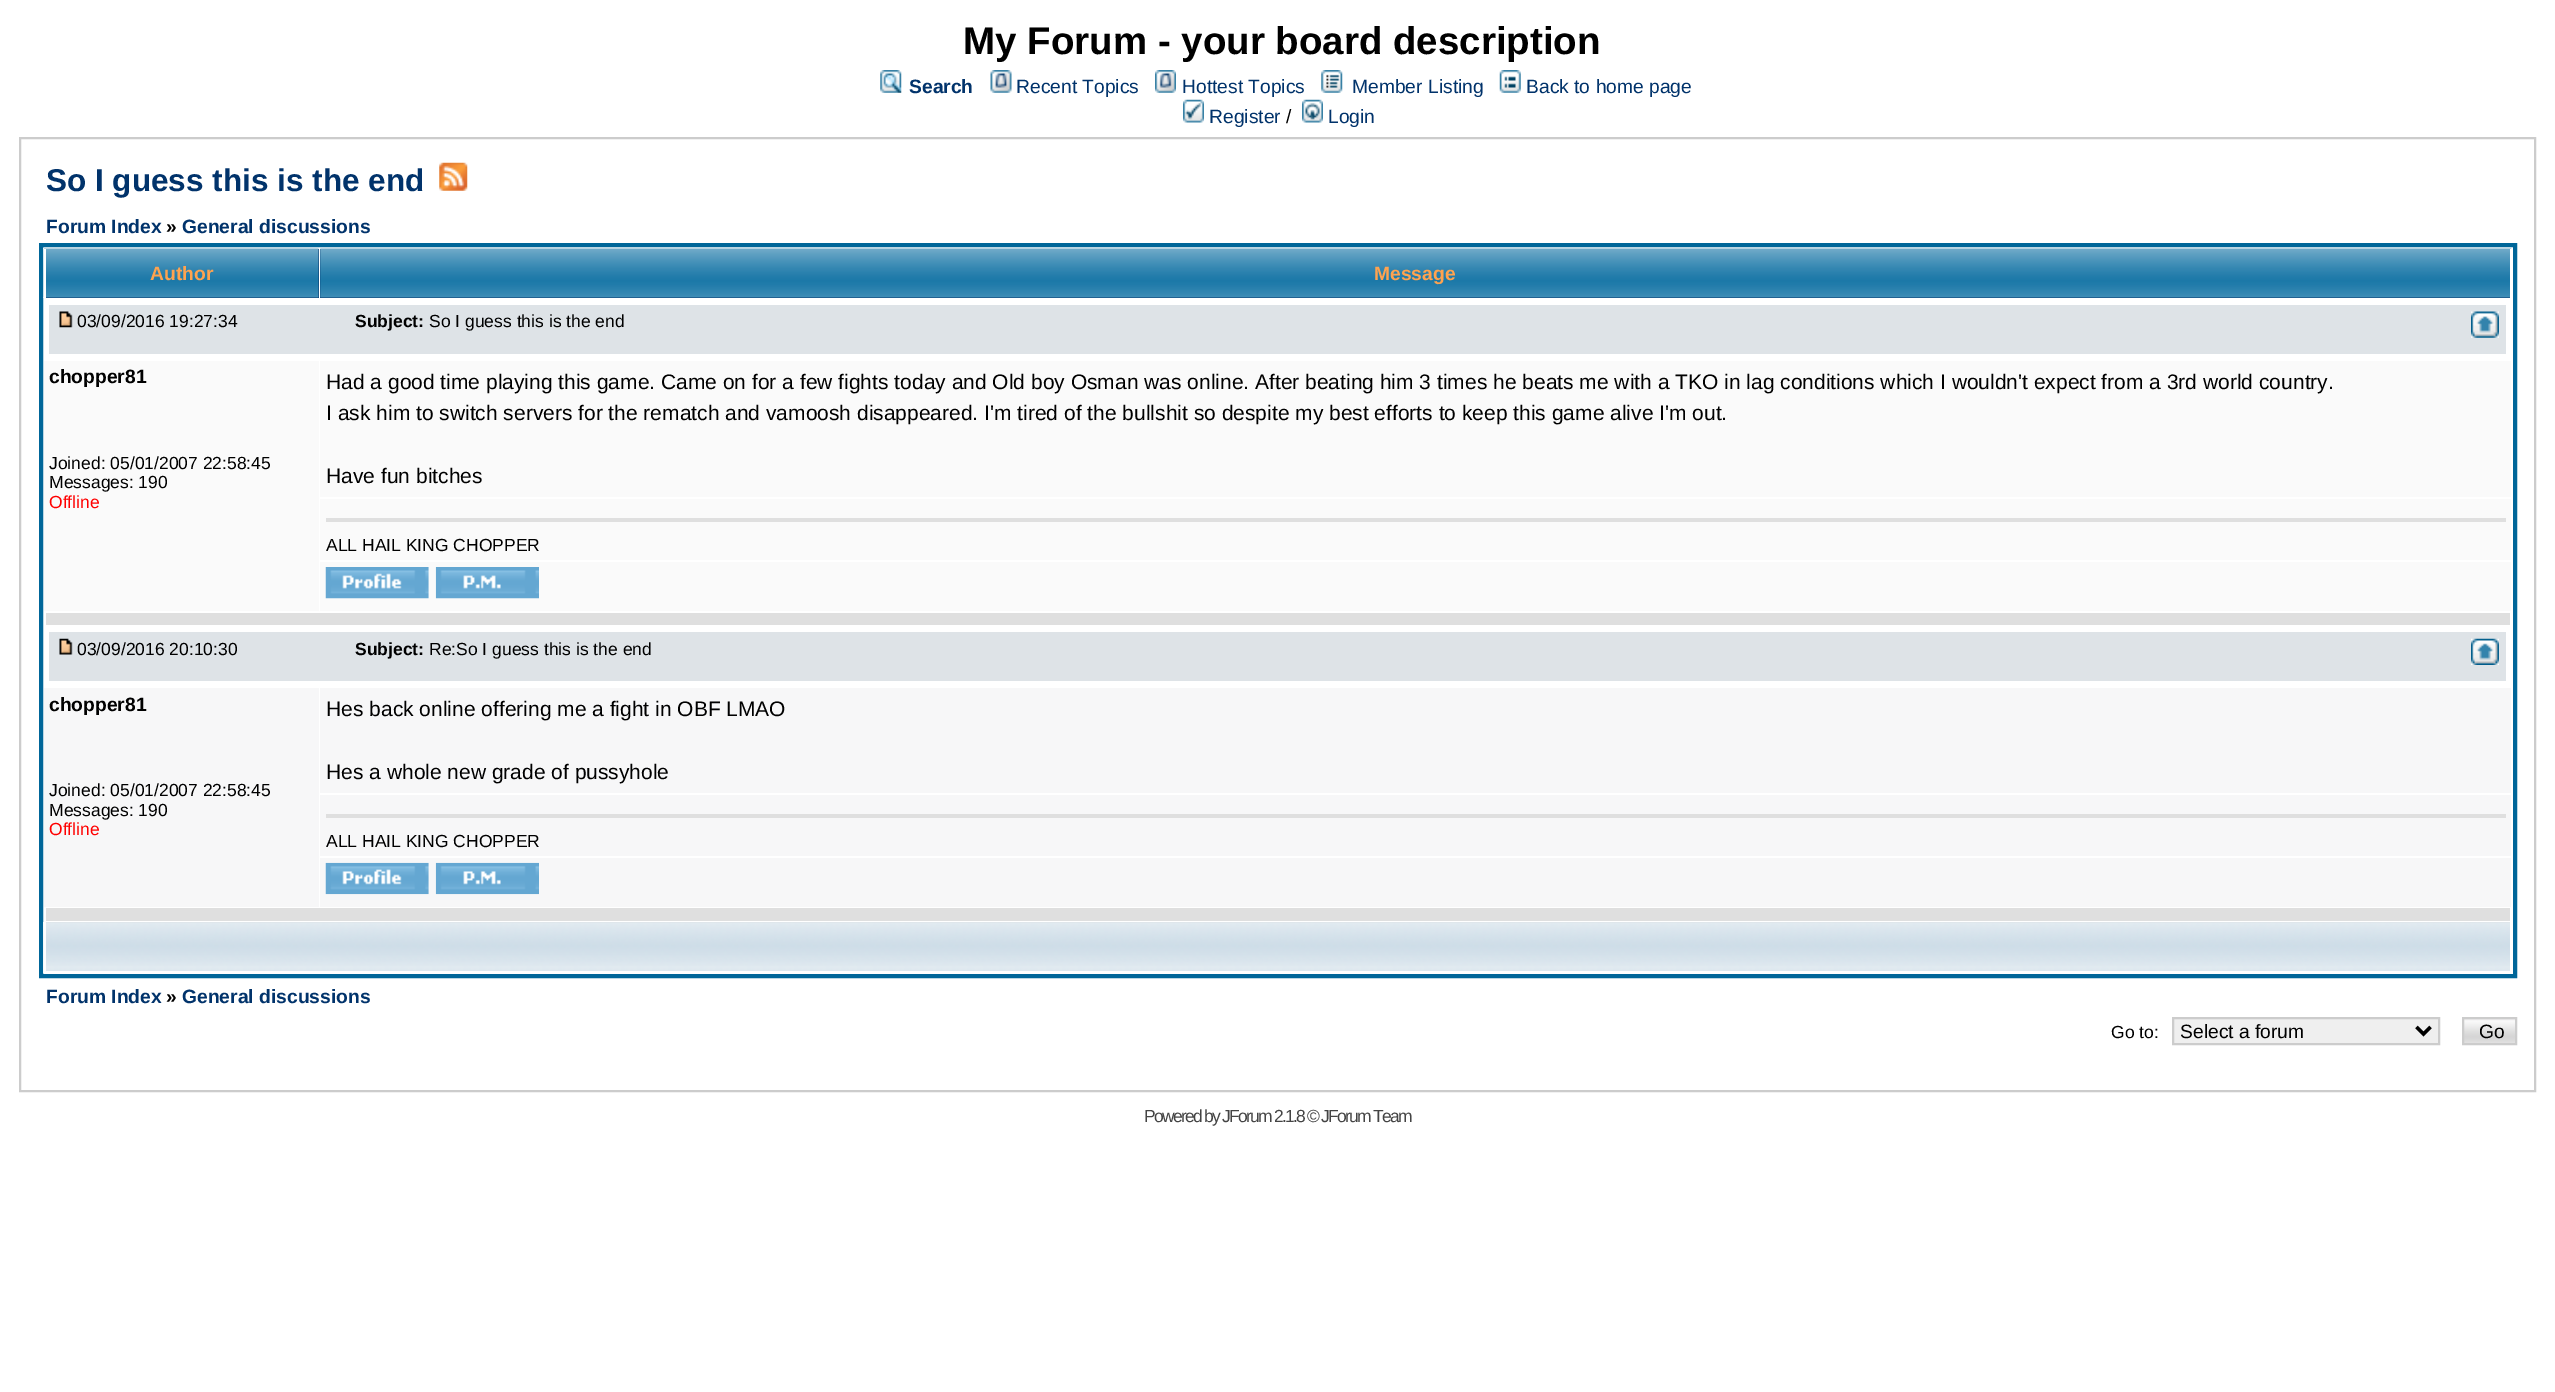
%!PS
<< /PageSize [2555 1392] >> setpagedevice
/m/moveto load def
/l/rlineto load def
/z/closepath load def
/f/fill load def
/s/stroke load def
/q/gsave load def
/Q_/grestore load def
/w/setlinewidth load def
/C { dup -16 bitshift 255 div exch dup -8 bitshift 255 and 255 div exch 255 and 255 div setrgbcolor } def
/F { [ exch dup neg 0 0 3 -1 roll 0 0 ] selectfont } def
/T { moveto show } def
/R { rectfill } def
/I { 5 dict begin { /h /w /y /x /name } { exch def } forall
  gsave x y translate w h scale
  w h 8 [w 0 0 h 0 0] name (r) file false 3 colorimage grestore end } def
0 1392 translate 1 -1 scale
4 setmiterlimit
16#FFFFFF C
0 0 2555 1392 R
/LiberationSans-Bold 38.5 F
16#000000 C
(My Forum - your board description) 963 54 T
(1.rgb) 880 70 22 23 I
/LiberationSans-Bold 19.25 F
16#01336B C
(Search) 909 93 T
(2.rgb) 990 70 22 23 I
/LiberationSans-Regular 19.25 F
(Recent Topics) 1016 93 T
(3.rgb) 1155 70 21 23 I
(Hottest Topics) 1182 93 T
(4.rgb) 1321 70 22 23 I
(Member Listing) 1352 93 T
(5.rgb) 1499 70 22 23 I
(Back to home page) 1526 93 T
(6.rgb) 1183 99 21 24 I
(Register) 1209 123 T
16#000000 C
(/) 1286 123 T
(7.rgb) 1302 99 21 24 I
16#01336B C
(Login) 1328 123 T
16#CCCCCC C
2 w
20 138 2515 953 rectstroke
/LiberationSans-Bold 31.5 F
16#01336B C
(So I guess this is the end) 46 191 T
(8.rgb) 439 162 29 29 I
/LiberationSans-Bold 19.25 F
(Forum Index) 46 233 T
16#000000 C
(») 166 233 T
16#01336B C
(General discussions) 182 233 T
16#006699 C
4 w
41 245 2474 731 rectstroke
16#01336B C
46 249 273 49 R
(9.rgb) 43 248 276 50 I
16#FFFFFF C
44 249 2 49 R
16#FFA34F C
(Author) 150 280 T
16#01336B C
320 249 2190 49 R
(10.rgb) 320 248 2192 50 I
16#FFFFFF C
2510 249 2 49 R
16#FFA34F C
(Message) 1374 280 T
16#DEE3E7 C
49 305 2457 49 R
(11.rgb) 59 311 14 17 I
/LiberationSans-Regular 17.5 F
16#000000 C
(03/09/2016 19:27:34) 77 327 T
/LiberationSans-Bold 17.5 F
(Subject:) 355 327 T
/LiberationSans-Regular 17.5 F
(So I guess this is the end) 429 327 T
(12.rgb) 2471 311 28 27 I
16#FAFAFA C
44 361 275 250 R
/LiberationSans-Bold 19.25 F
16#000000 C
(chopper81) 49 383 T
/LiberationSans-Regular 17.5 F
(Joined: 05/01/2007 22:58:45) 49 469 T
(Messages: 190) 49 488 T
16#FF0000 C
(Offline) 49 508 T
16#FAFAFA C
320 361 2191 136 R
/LiberationSans-Regular 21 F
16#000000 C
(Had a good time playing this game. Came on for a few fights today and Old boy Osman was online. After beating him 3 times he beats me with a TKO in lag conditions which I wouldn't expect from a 3rd world country.) 326 389 T
(I ask him to switch servers for the rematch and vamoosh disappeared. I'm tired of the bullshit so despite my best efforts to keep this game alive I'm out.) 326 420 T
(Have fun bitches) 326 483 T
16#FAFAFA C
320 499 2191 61 R
16#DFDFDF C
326 518 2180 4 R
/LiberationSans-Regular 17.5 F
16#000000 C
(ALL HAIL KING CHOPPER) 326 551 T
16#FAFAFA C
320 562 2191 49 R
(13.rgb) 325 567 104 32 I
(14.rgb) 435 567 104 32 I
16#DFDFDF C
46 613 2464 12 R
16#DEE3E7 C
49 632 2457 49 R
(15.rgb) 59 638 14 17 I
16#000000 C
(03/09/2016 20:10:30) 77 655 T
/LiberationSans-Bold 17.5 F
(Subject:) 355 655 T
/LiberationSans-Regular 17.5 F
(Re:So I guess this is the end) 429 655 T
(16.rgb) 2471 638 28 27 I
16#F7F7F8 C
44 688 275 219 R
/LiberationSans-Bold 19.25 F
16#000000 C
(chopper81) 49 711 T
/LiberationSans-Regular 17.5 F
(Joined: 05/01/2007 22:58:45) 49 796 T
(Messages: 190) 49 816 T
16#FF0000 C
(Offline) 49 835 T
16#F7F7F8 C
320 688 2191 105 R
/LiberationSans-Regular 21 F
16#000000 C
(Hes back online offering me a fight in OBF LMAO) 326 716 T
(Hes a whole new grade of pussyhole) 326 779 T
16#F7F7F8 C
320 795 2191 61 R
16#DFDFDF C
326 814 2180 4 R
/LiberationSans-Regular 17.5 F
16#000000 C
(ALL HAIL KING CHOPPER) 326 847 T
16#F7F7F8 C
320 858 2191 49 R
(17.rgb) 325 862 104 33 I
(18.rgb) 435 862 104 33 I
16#DFDFDF C
46 908 2464 13 R
(19.rgb) 43 922 2467 51 I
16#FFFFFF C
44 971 2467 2 R
44 922 2 51 R
/LiberationSans-Bold 19.25 F
16#01336B C
(Forum Index) 46 1003 T
16#000000 C
(») 166 1003 T
16#01336B C
(General discussions) 182 1003 T
/LiberationSans-Regular 17.5 F
16#000000 C
(Go to:) 2111 1038 T
16#EFEFEF C
2173 1018 m 266 0 l 0 26 l -266 0 l z q f Q_
16#CCCCCC C
2 w
s
16#000000 C
3.5 w
2416.5 1027 m 7 7 l 7 -7 l s
/LiberationSans-Regular 19.25 F
(Select a forum) 2180 1038 T
(20.rgb) 2464 1019 51 24 I
16#CCCCCC C
2 w
2463 1018 53 26 rectstroke
16#000000 C
(Go) 2479 1038 T
/LiberationSans-Regular 17.5 F
16#444444 C
1144 1122 m -1.75 0 (Powered by JForum 2.1.8 © JForum Team) ashow
showpage
